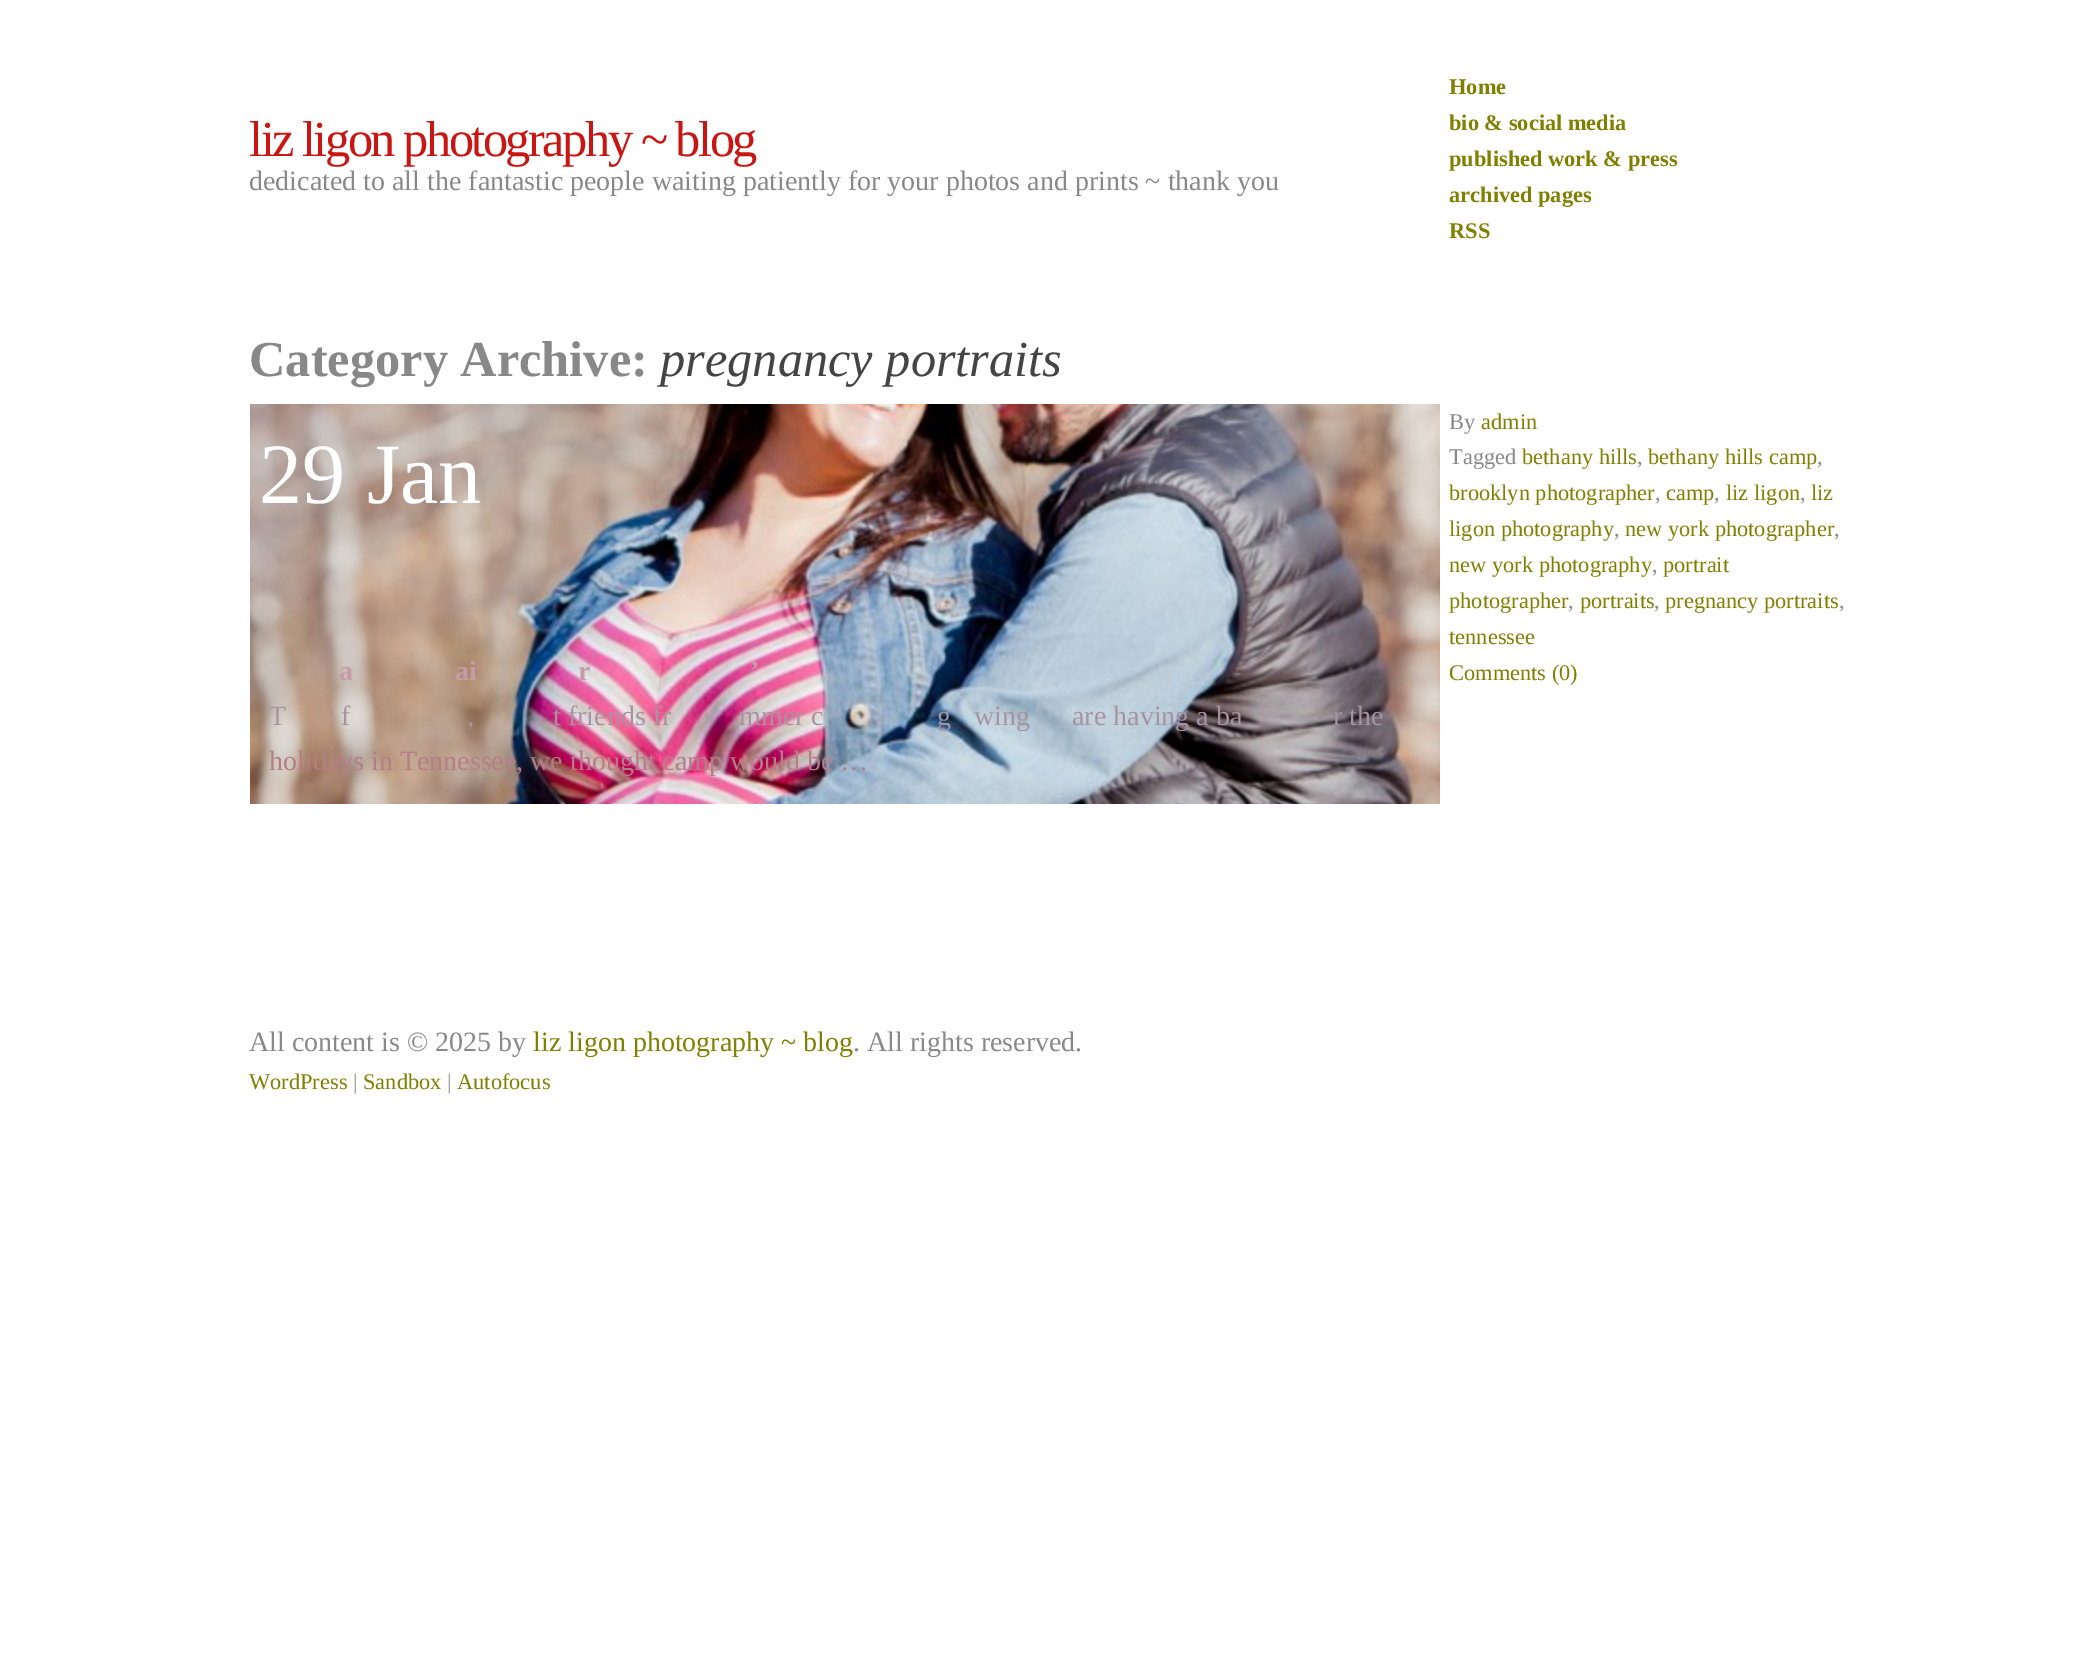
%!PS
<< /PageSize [2097 1658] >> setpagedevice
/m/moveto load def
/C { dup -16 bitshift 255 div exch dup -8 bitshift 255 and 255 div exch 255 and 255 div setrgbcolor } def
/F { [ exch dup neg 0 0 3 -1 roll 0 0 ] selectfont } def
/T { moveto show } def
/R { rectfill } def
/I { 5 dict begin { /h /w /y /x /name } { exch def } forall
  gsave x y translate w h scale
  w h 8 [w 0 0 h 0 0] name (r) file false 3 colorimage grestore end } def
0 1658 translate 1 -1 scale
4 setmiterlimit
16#FFFFFF C
0 0 2097 1658 R
/LiberationSerif-Regular 50.4 F
16#C91613 C
249 156 m -2.5 0 (liz ligon photography ~ blog) ashow
/LiberationSerif-Regular 28 F
16#888888 C
(dedicated to all the fantastic people waiting patiently for your photos and prints ~ thank you) 249 190 T
/LiberationSerif-Bold 22.4 F
16#808000 C
(Home) 1449 94 T
(bio & social media) 1449 130 T
(published work & press) 1449 166 T
(archived pages) 1449 202 T
(RSS) 1449 238 T
/LiberationSerif-Bold 50.4 F
16#888888 C
(Category Archive:) 249 376 T
/LiberationSerif-Italic 50.4 F
16#444444 C
(pregnancy portraits) 660 376 T
(1.rgb) 250 404 1190 400 I
/LiberationSerif-Regular 86 F
16#FFFFFF C
(29 Jan) 259 503 T
/LiberationSerif-Bold 28 F
16#C69CA8 C
(a) 339 680 T
(ai) 455 680 T
(r) 578 680 T
(’) 750 680 T
/LiberationSerif-Regular 28 F
16#A793A0 C
(T) 269 725 T
(f) 341 725 T
(,) 467 725 T
(t friends fr) 553 725 T
(mmer c) 739 725 T
(g) 937 725 T
(wing) 974 725 T
(are having a ba) 1072 725 T
(r the) 1333 725 T
16#B57E87 C
(holidays in Tennessee, we thought camp would be …) 269 770 T
/LiberationSerif-Regular 22.4 F
16#888888 C
(By) 1449 429 T
16#808000 C
(admin) 1481 429 T
16#888888 C
(Tagged) 1449 464 T
16#808000 C
(bethany hills) 1522 464 T
16#888888 C
(,) 1637 464 T
16#808000 C
(bethany hills camp) 1648 464 T
16#888888 C
(,) 1817 464 T
16#808000 C
(brooklyn photographer) 1449 500 T
16#888888 C
(,) 1655 500 T
16#808000 C
(camp) 1666 500 T
16#888888 C
(,) 1714 500 T
16#808000 C
(liz ligon) 1726 500 T
16#888888 C
(,) 1800 500 T
16#808000 C
(liz) 1811 500 T
(ligon photography) 1449 536 T
16#888888 C
(,) 1614 536 T
16#808000 C
(new york photographer) 1625 536 T
16#888888 C
(,) 1834 536 T
16#808000 C
(new york photography) 1449 572 T
16#888888 C
(,) 1652 572 T
16#808000 C
(portrait) 1663 572 T
(photographer) 1449 608 T
16#888888 C
(,) 1568 608 T
16#808000 C
(portraits) 1580 608 T
16#888888 C
(,) 1654 608 T
16#808000 C
(pregnancy portraits) 1665 608 T
16#888888 C
(,) 1839 608 T
16#808000 C
(tennessee) 1449 644 T
(Comments \(0\)) 1449 680 T
/LiberationSerif-Regular 28 F
16#888888 C
(All content is © 2025 by) 249 1051 T
16#808000 C
(liz ligon photography ~ blog) 533 1051 T
16#888888 C
(. All rights reserved.) 853 1051 T
/LiberationSerif-Regular 22.4 F
16#808000 C
(WordPress) 249 1089 T
16#888888 C
(|) 353 1089 T
16#808000 C
(Sandbox) 363 1089 T
16#888888 C
(|) 447 1089 T
16#808000 C
(Autofocus) 457 1089 T
showpage
